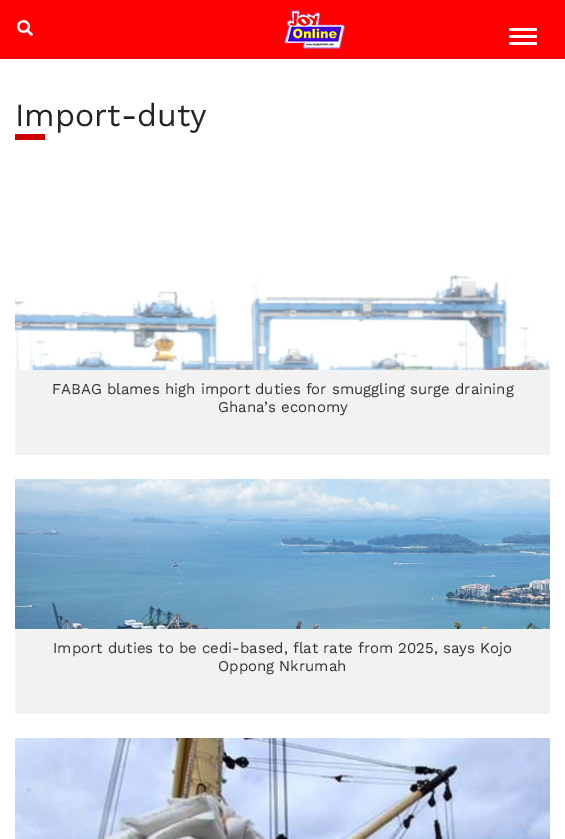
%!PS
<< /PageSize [565 839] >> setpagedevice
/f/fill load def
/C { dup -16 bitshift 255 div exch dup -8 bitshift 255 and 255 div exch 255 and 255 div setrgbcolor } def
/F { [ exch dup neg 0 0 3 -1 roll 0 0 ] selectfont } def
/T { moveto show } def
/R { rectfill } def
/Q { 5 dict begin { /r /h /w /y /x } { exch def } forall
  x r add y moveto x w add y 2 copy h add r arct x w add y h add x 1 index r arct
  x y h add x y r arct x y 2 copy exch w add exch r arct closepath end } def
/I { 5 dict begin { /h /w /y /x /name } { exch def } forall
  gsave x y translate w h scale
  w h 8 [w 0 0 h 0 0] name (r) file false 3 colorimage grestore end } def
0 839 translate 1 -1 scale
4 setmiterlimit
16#FFFFFF C
0 0 565 839 R
16#FF0000 C
0 0 565 59 R
(1.rgb) 17 20 16 16 I
(2.rgb) 284 10 61 39 I
16#FFFFFF C
509 28 28 3 1.5 Q f
509 35 28 3 1.5 Q f
509 42 28 3 1.5 Q f
/WorkSans-Regular 32 F
16#212529 C
(Import-duty) 15 126 T
16#CC0000 C
15 134 30 6 R
16#F2F2F2 C
15 370 535 85 R
(3.rgb) 15 274 535 96 I
/WorkSans-Regular 15 F
16#333333 C
(FABAG blames high import duties for smuggling surge draining) 52 394 T
(Ghana’s economy) 218 412 T
16#F2F2F2 C
15 629 535 85 R
(4.rgb) 15 479 535 150 I
16#333333 C
(Import duties to be cedi-based, flat rate from 2025, says Kojo) 53 653 T
(Oppong Nkrumah) 218 671 T
(5.rgb) 15 738 535 101 I
showpage
